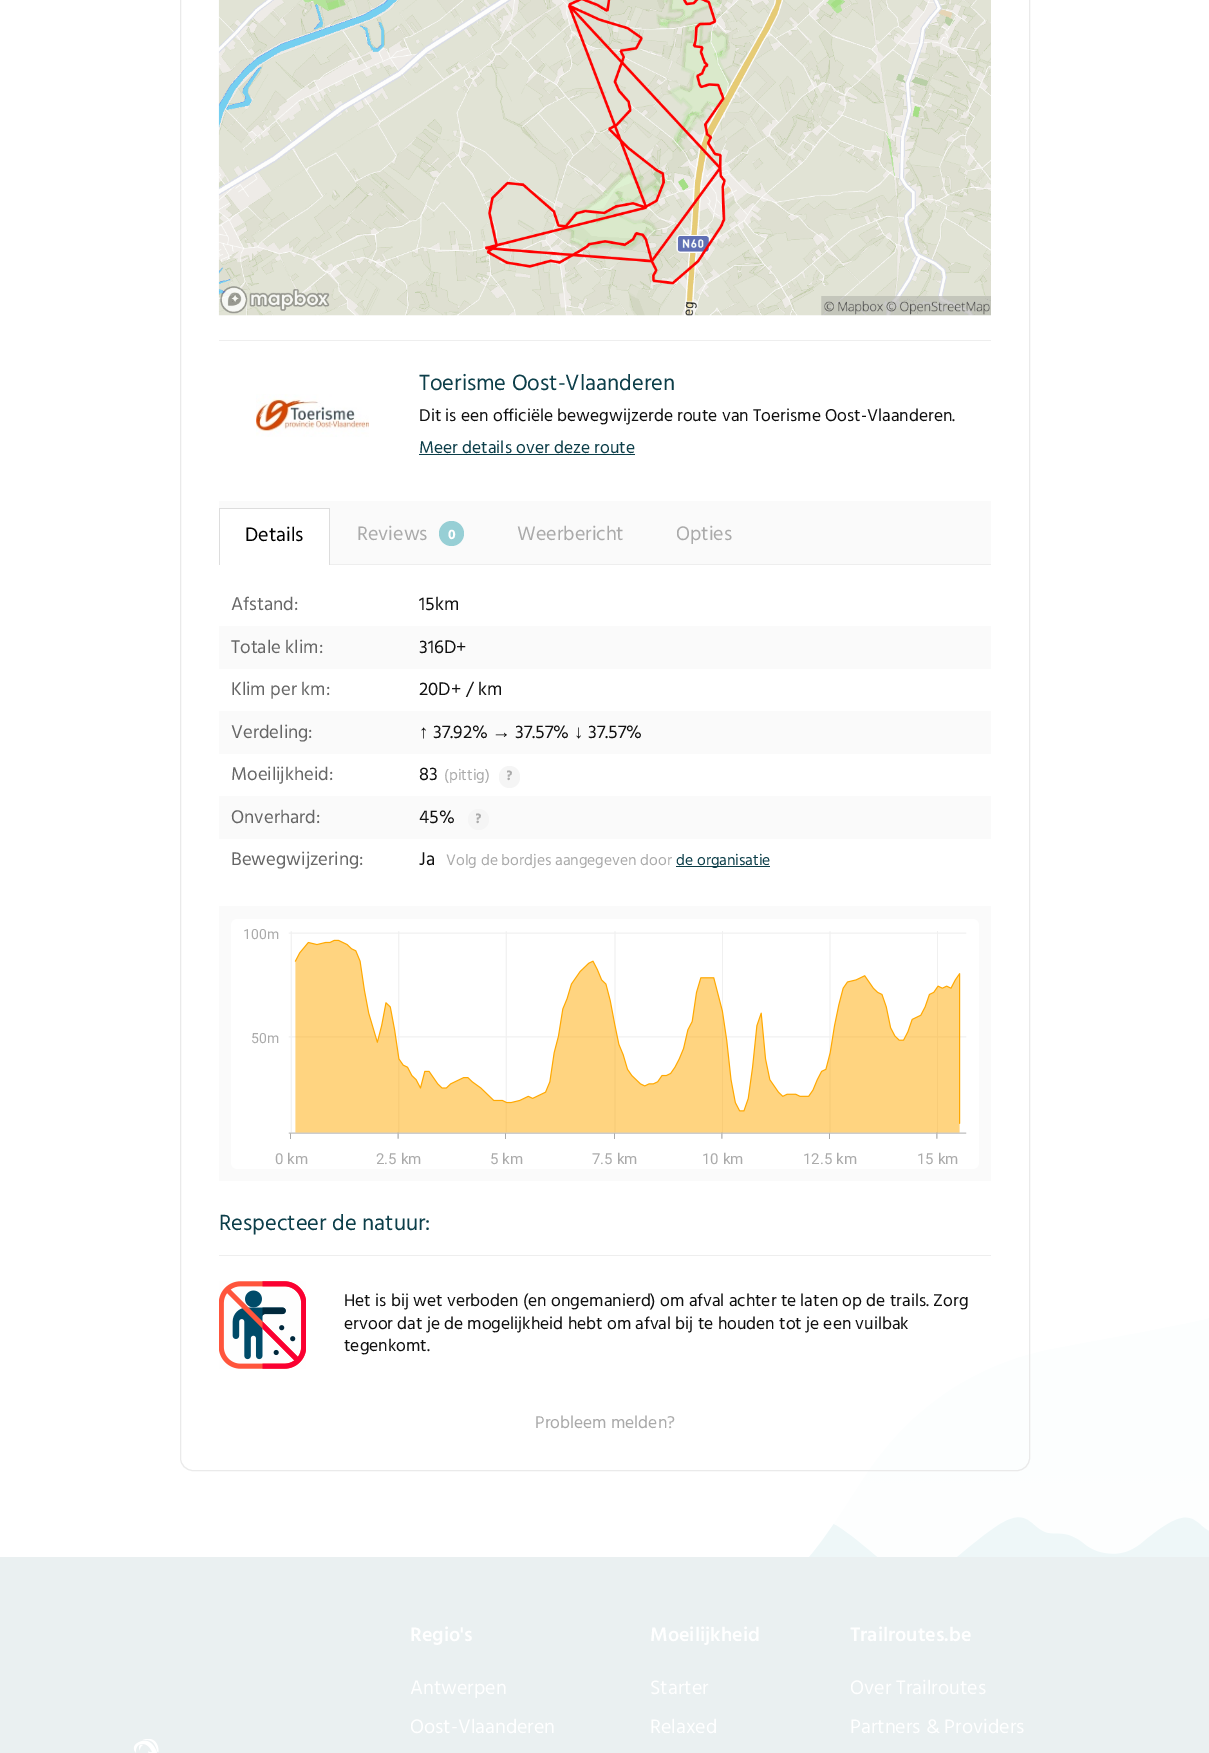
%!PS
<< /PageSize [1209 1753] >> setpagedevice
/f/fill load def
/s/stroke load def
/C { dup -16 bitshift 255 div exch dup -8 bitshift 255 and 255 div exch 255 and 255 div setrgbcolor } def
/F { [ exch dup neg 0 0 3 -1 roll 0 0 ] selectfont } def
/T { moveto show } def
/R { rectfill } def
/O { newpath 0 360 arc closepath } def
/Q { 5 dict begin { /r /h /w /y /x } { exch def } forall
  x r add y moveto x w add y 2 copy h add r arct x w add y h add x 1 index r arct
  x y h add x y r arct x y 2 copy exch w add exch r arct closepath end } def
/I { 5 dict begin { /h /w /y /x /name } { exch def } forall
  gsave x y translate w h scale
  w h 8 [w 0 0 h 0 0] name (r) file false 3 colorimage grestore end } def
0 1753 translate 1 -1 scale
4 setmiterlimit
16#FFFFFF C
0 0 1209 1753 R
(1.rgb) 0 1215 1209 342 I
16#EAEAEA C
180.5 -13.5 849 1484 12.5 Q s
(2.rgb) 218 0 773 316 I
16#EEEEEE C
219 340 772 1 R
(3.rgb) 256 394 113 43 I
/Hind-Regular 22.5 F
16#0C3E49 C
(Toerisme Oost-Vlaanderen) 419 390 T
/Hind-Regular 17.5 F
16#111111 C
(Dit is een officiële bewegwijzerde route van Toerisme Oost-Vlaanderen.) 419 421 T
16#0C3E49 C
(Meer details over deze route) 419 453 T
419 454 216 1 R
16#FAFAFA C
219 501 772 63 R
16#EEEEEE C
330 564 661 1 R
16#FFFFFF C
220 509 109 55 R
16#DDDDDD C
219 508 111 1 R
329 508 1 57 R
219 508 1 57 R
/Hind-Regular 20 F
16#000000 C
(Details) 245 541 T
16#AAAAAA C
(Reviews) 357 540 T
16#97CFD5 C
451.5 533.5 12.5 O f
/Hind-Bold 14 F
16#FFFFFF C
(0) 448 539 T
/Hind-Regular 20 F
16#AAAAAA C
(Weerbericht) 517 540 T
(Opties) 676 540 T
/Hind-Regular 18.75 F
16#666666 C
(Afstand:) 231 610 T
16#111111 C
(15km) 419 610 T
16#FAFAFA C
219 626 772 43 R
16#666666 C
(Totale klim:) 231 653 T
16#111111 C
(316D+) 419 653 T
16#666666 C
(Klim per km:) 231 695 T
16#111111 C
(20D+ / km) 419 695 T
16#FAFAFA C
219 711 772 43 R
16#666666 C
(Verdeling:) 231 738 T
/LiberationSans-Regular 18.75 F
16#111111 C
(↑) 419 738 T
/Hind-Regular 18.75 F
(37.92%) 433 738 T
/LiberationSans-Regular 18.75 F
(→) 492 738 T
/Hind-Regular 18.75 F
(37.57%) 515 738 T
/LiberationSans-Regular 18.75 F
(↓) 574 738 T
/Hind-Regular 18.75 F
(37.57%) 588 738 T
16#666666 C
(Moeilijkheid:) 231 780 T
16#111111 C
(83) 419 780 T
/Hind-Regular 15.6 F
16#AAAAAA C
(\(pittig\)) 444 780 T
16#F5F5F5 C
499 766 21 22 10.5 Q f
/Hind-Bold 14 F
16#AAAAAA C
(?) 506 780 T
16#FAFAFA C
219 796 772 43 R
/Hind-Regular 18.75 F
16#666666 C
(Onverhard:) 231 823 T
16#111111 C
(45%) 419 823 T
16#F5F5F5 C
478.5 819.5 10.5 O f
/Hind-Bold 14 F
16#AAAAAA C
(?) 475 823 T
/Hind-Regular 18.75 F
16#666666 C
(Bewegwijzering:) 231 865 T
16#111111 C
(Ja) 419 865 T
/Hind-Regular 15.6 F
16#AAAAAA C
(Volg de bordjes aangegeven door) 446 865 T
16#0C3E49 C
676 866 94 1 R
(de organisatie) 676 865 T
16#FAFAFA C
219 906 772 275 R
(4.rgb) 231 919 748 250 I
/Roboto-Regular 14 F
16#AAAAAA C
(100m) 243 939 T
(50m) 251 1043 T
/Roboto-Regular 15 F
(0 km) 275 1164 T
(2.5 km) 376 1164 T
(5 km) 490 1164 T
(7.5 km) 592 1164 T
(10 km) 702 1164 T
(12.5 km) 803 1164 T
(15 km) 917 1164 T
16#EEEEEE C
219 1255 772 1 R
/Hind-Regular 22.5 F
16#0C3E49 C
(Respecteer de natuur:) 219 1230 T
(5.rgb) 219 1281 87 88 I
/Hind-Regular 17.5 F
16#111111 C
(Het is bij wet verboden \(en ongemanierd\) om afval achter te laten op de trails. Zorg) 344 1306 T
(ervoor dat je de mogelijkheid hebt om afval bij te houden tot je een vuilbak) 344 1329 T
(tegenkomt.) 344 1351 T
16#AAAAAA C
(Probleem melden?) 535 1428 T
16#EAF0F1 C
0 1557 1209 196 R
/Hind-SemiBold 20 F
16#FFFFFF C
(Regio's) 410 1641 T
/Hind-Regular 20 F
(Antwerpen) 410 1694 T
(Oost-Vlaanderen) 410 1733 T
/Hind-SemiBold 20 F
(Moeilijkheid) 650 1641 T
/Hind-Regular 20 F
(Starter) 650 1694 T
(Relaxed) 650 1733 T
/Hind-SemiBold 20 F
(Trailroutes.be) 850 1641 T
/Hind-Regular 20 F
(Over Trailroutes) 850 1694 T
(Partners & Providers) 850 1733 T
(6.rgb) 133 1739 26 14 I
showpage
